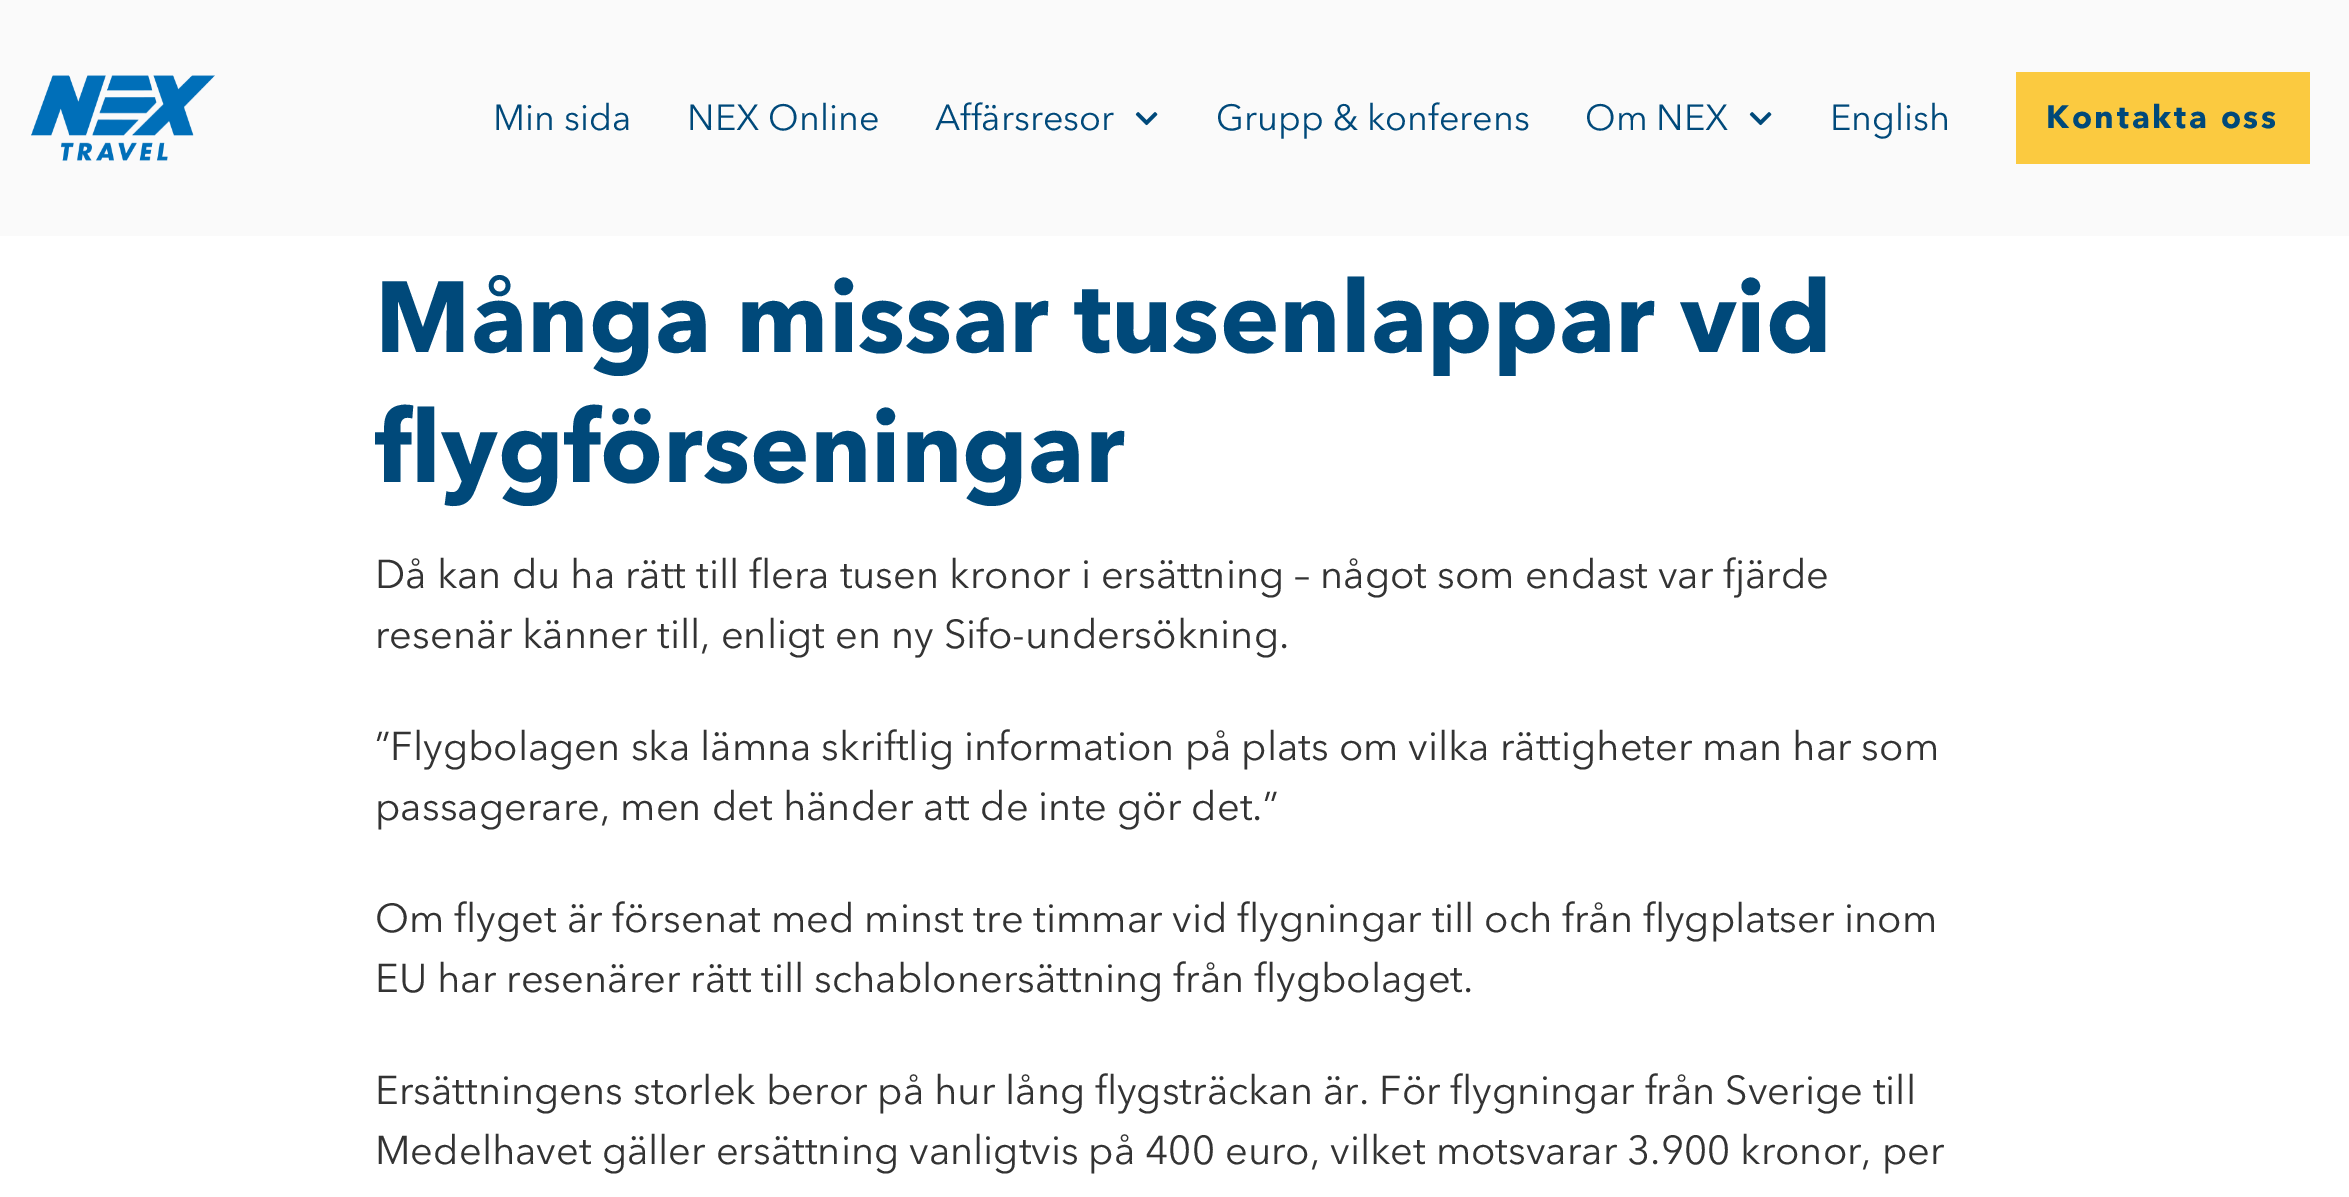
%!PS
<< /PageSize [2349 1197] >> setpagedevice
/m/moveto load def
/C { dup -16 bitshift 255 div exch dup -8 bitshift 255 and 255 div exch 255 and 255 div setrgbcolor } def
/F { [ exch dup neg 0 0 3 -1 roll 0 0 ] selectfont } def
/T { moveto show } def
/R { rectfill } def
/I { 5 dict begin { /h /w /y /x /name } { exch def } forall
  gsave x y translate w h scale
  w h 8 [w 0 0 h 0 0] name (r) file false 3 colorimage grestore end } def
0 1197 translate 1 -1 scale
4 setmiterlimit
16#FFFFFF C
0 0 2349 1197 R
16#FAFAFA C
0 0 2349 236 R
(1.rgb) 31 75 184 86 I
/AvenirNext-Regular 36 F
16#00497A C
(Min sida) 493 130 T
(NEX Online) 687 130 T
(Affärsresor) 935 130 T
(2.rgb) 1135 112 23 14 I
(Grupp & konferens) 1216 130 T
(Om NEX) 1585 130 T
(2.rgb) 1749 112 23 14 I
(English) 1830 130 T
16#FBCA40 C
2016 72 294 92 R
/AvenirNext-Bold 32 F
16#00497A C
2046 128 m 2.75 0 (Kontakta oss) ashow
/AvenirNext-Bold 100 F
(Många missar tusenlappar vid) 375 352 T
(flygförseningar) 375 482 T
/AvenirNext-Regular 40 F
16#333333 C
(Då kan du ha rätt till flera tusen kronor i ersättning – något som endast var fjärde) 375 588 T
(resenär känner till, enligt en ny Sifo-undersökning.) 375 648 T
(”Flygbolagen ska lämna skriftlig information på plats om vilka rättigheter man har som) 375 760 T
(passagerare, men det händer att de inte gör det.”) 375 820 T
(Om flyget är försenat med minst tre timmar vid flygningar till och från flygplatser inom) 375 932 T
(EU har resenärer rätt till schablonersättning från flygbolaget.) 375 992 T
(Ersättningens storlek beror på hur lång flygsträckan är. För flygningar från Sverige till) 375 1104 T
(Medelhavet gäller ersättning vanligtvis på 400 euro, vilket motsvarar 3.900 kronor, per) 375 1164 T
showpage
